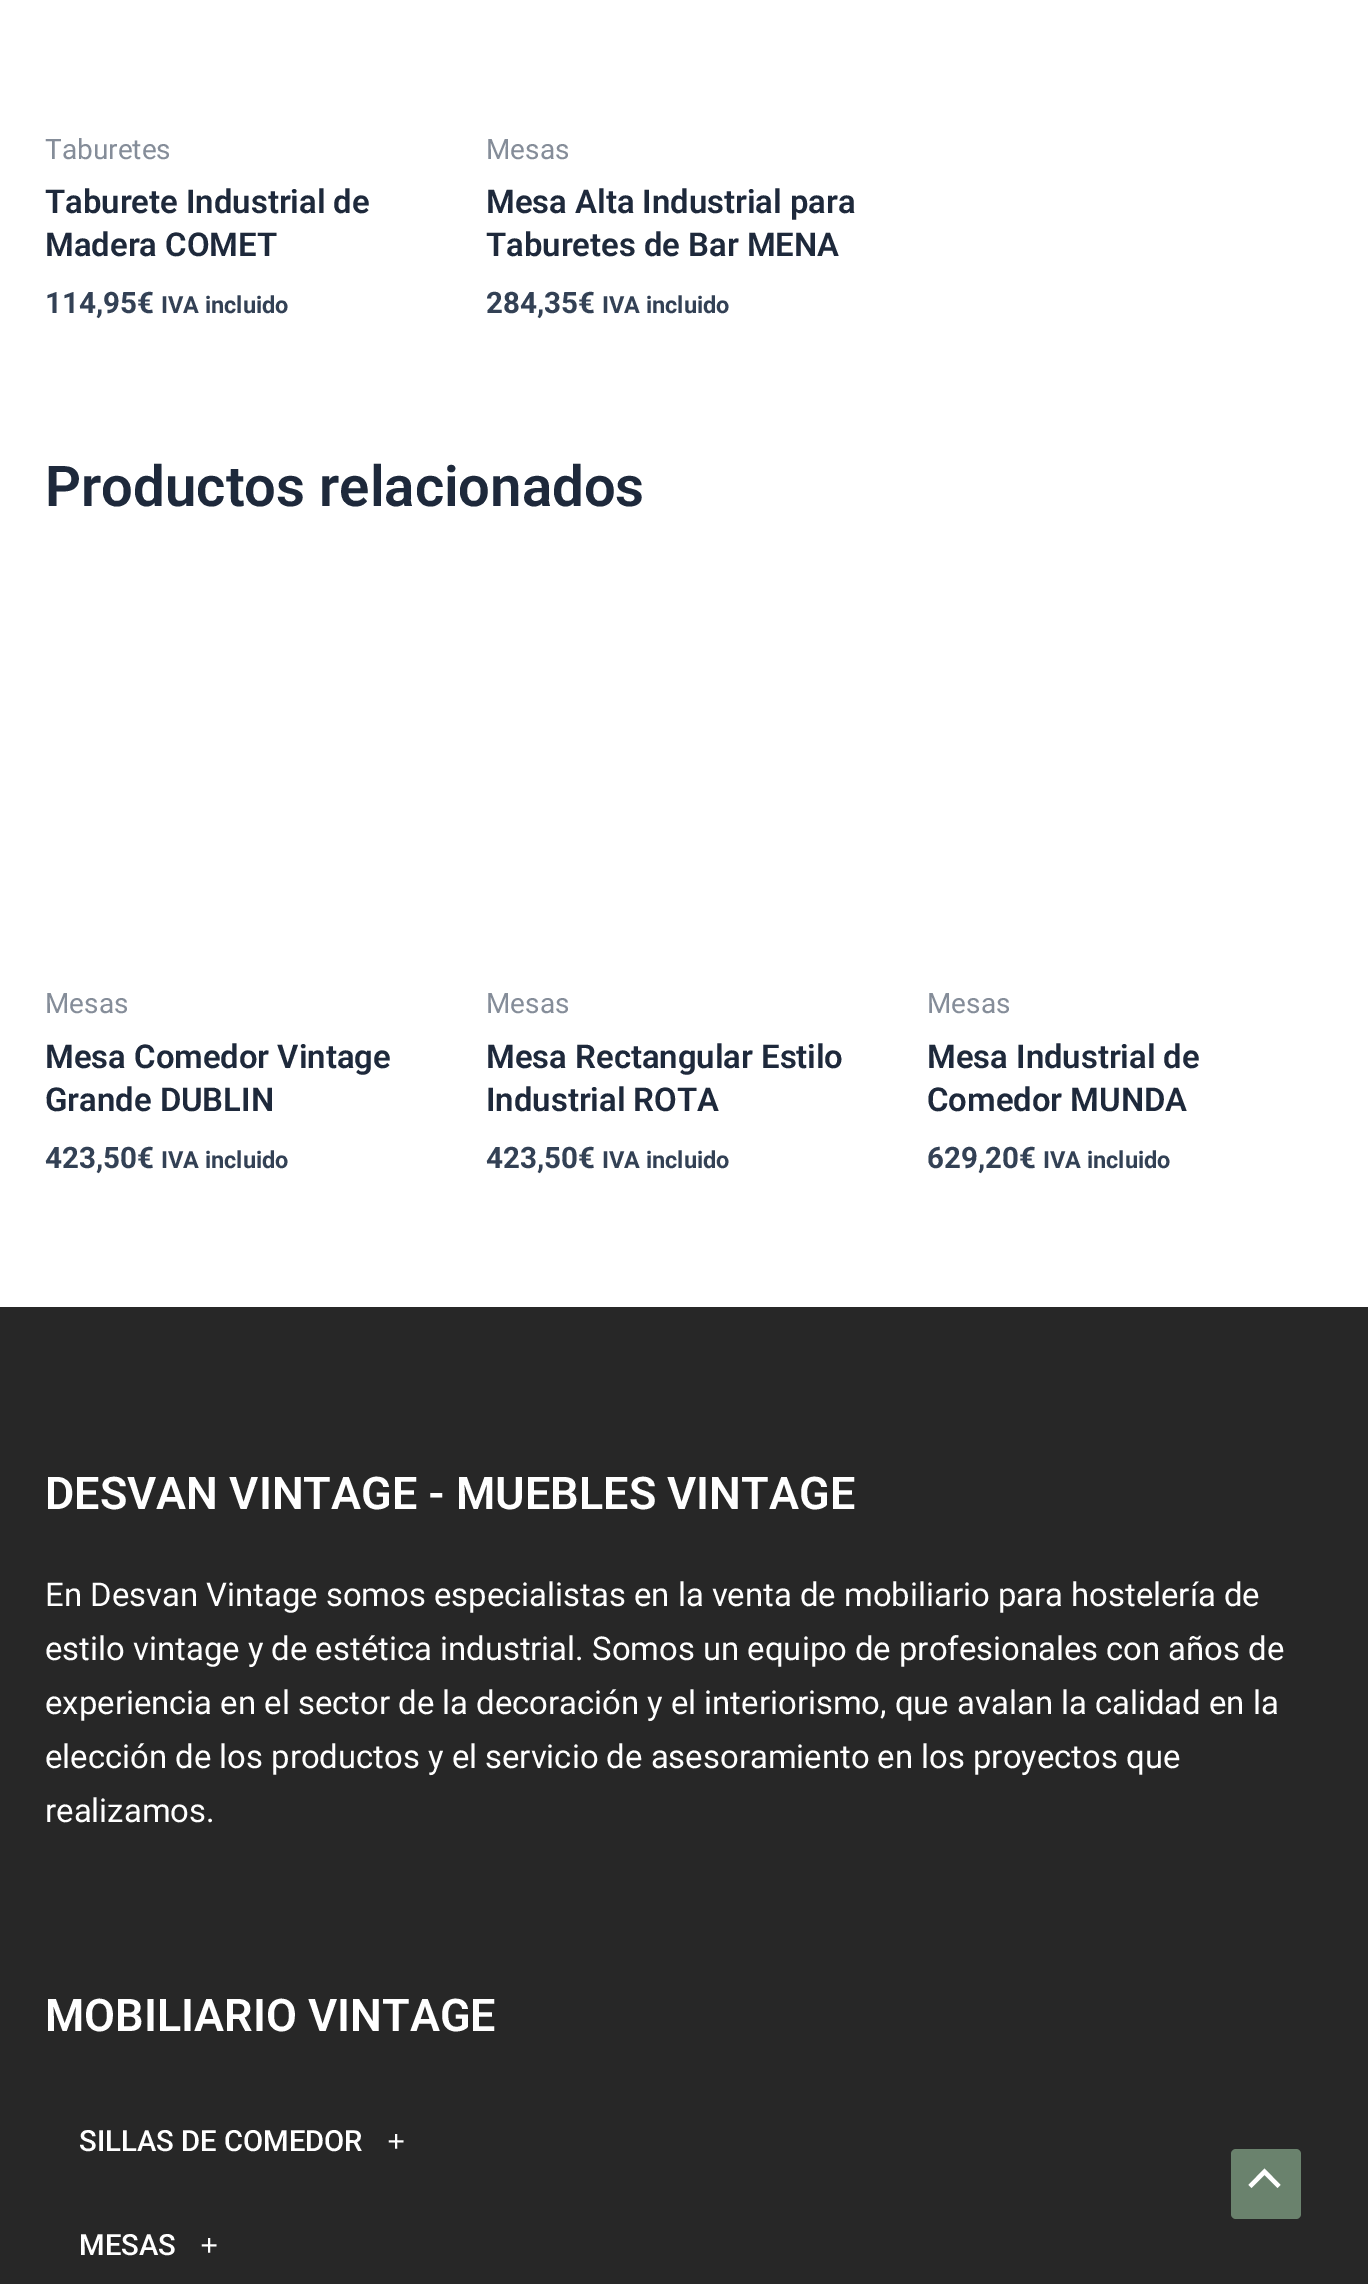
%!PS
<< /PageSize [1368 2284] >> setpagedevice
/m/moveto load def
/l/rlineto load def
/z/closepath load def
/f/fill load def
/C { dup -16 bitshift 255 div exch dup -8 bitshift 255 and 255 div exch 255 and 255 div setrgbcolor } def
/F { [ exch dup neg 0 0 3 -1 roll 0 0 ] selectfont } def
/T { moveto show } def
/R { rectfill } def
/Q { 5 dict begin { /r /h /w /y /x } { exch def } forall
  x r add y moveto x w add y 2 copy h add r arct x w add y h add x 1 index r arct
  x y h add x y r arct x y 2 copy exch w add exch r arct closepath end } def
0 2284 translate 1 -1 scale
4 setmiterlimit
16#FFFFFF C
0 0 1368 2284 R
/Roboto-Regular 28 F
16#858D99 C
(Taburetes) 45 159 T
/Roboto-SemiBold 32.85 F
16#1E293B C
(Taburete Industrial de) 45 213 T
(Madera COMET) 45 256 T
/Roboto-Bold 29.5 F
16#334155 C
(114,95€) 45 313 T
/Roboto-Bold 23.5 F
(IVA incluido) 161 313 T
/Roboto-Regular 28 F
16#858D99 C
(Mesas) 486 159 T
/Roboto-SemiBold 32.85 F
16#1E293B C
(Mesa Alta Industrial para) 486 213 T
(Taburetes de Bar MENA) 486 256 T
/Roboto-Bold 29.5 F
16#334155 C
(284,35€) 486 313 T
/Roboto-Bold 23.5 F
(IVA incluido) 602 313 T
/Roboto-SemiBold 56.25 F
16#1E293B C
(Productos relacionados) 45 506 T
/Roboto-Regular 28 F
16#858D99 C
(Mesas) 45 1013 T
/Roboto-SemiBold 32.85 F
16#1E293B C
(Mesa Comedor Vintage) 45 1068 T
(Grande DUBLIN) 45 1111 T
/Roboto-Bold 29.5 F
16#334155 C
(423,50€) 45 1168 T
/Roboto-Bold 23.5 F
(IVA incluido) 161 1168 T
/Roboto-Regular 28 F
16#858D99 C
(Mesas) 486 1013 T
/Roboto-SemiBold 32.85 F
16#1E293B C
(Mesa Rectangular Estilo) 486 1068 T
(Industrial ROTA) 486 1111 T
/Roboto-Bold 29.5 F
16#334155 C
(423,50€) 486 1168 T
/Roboto-Bold 23.5 F
(IVA incluido) 602 1168 T
/Roboto-Regular 28 F
16#858D99 C
(Mesas) 927 1013 T
/Roboto-SemiBold 32.85 F
16#1E293B C
(Mesa Industrial de) 927 1068 T
(Comedor MUNDA) 927 1111 T
/Roboto-Bold 29.5 F
16#334155 C
(629,20€) 927 1168 T
/Roboto-Bold 23.5 F
(IVA incluido) 1043 1168 T
16#272727 C
0 1307 1368 977 R
/Roboto-SemiBold 45 F
16#FFFFFF C
(DESVAN VINTAGE - MUEBLES VINTAGE) 45 1509 T
/Roboto-Regular 32.85 F
(En Desvan Vintage somos especialistas en la venta de mobiliario para hostelería de) 45 1606 T
(estilo vintage y de estética industrial. Somos un equipo de profesionales con años de) 45 1660 T
(experiencia en el sector de la decoración y el interiorismo, que avalan la calidad en la) 45 1714 T
(elección de los productos y el servicio de asesoramiento en los proyectos que) 45 1768 T
(realizamos.) 45 1822 T
/Roboto-SemiBold 45 F
(MOBILIARIO VINTAGE) 45 2031 T
/Roboto-Medium 29.25 F
(SILLAS DE COMEDOR) 79 2151 T
/LiberationSerif-Bold 32 F
(+) 387 2152 T
/Roboto-Medium 29.25 F
(MESAS) 79 2255 T
/LiberationSerif-Bold 32 F
(+) 200 2256 T
16#6A826D C
1231 2149 70 70 5 Q f
16#FFFFFF C
1280.5 2185 m -16 -16.5 l -16 16.5 l 3 3 l 13 -13 l 13 13 l z f
showpage
